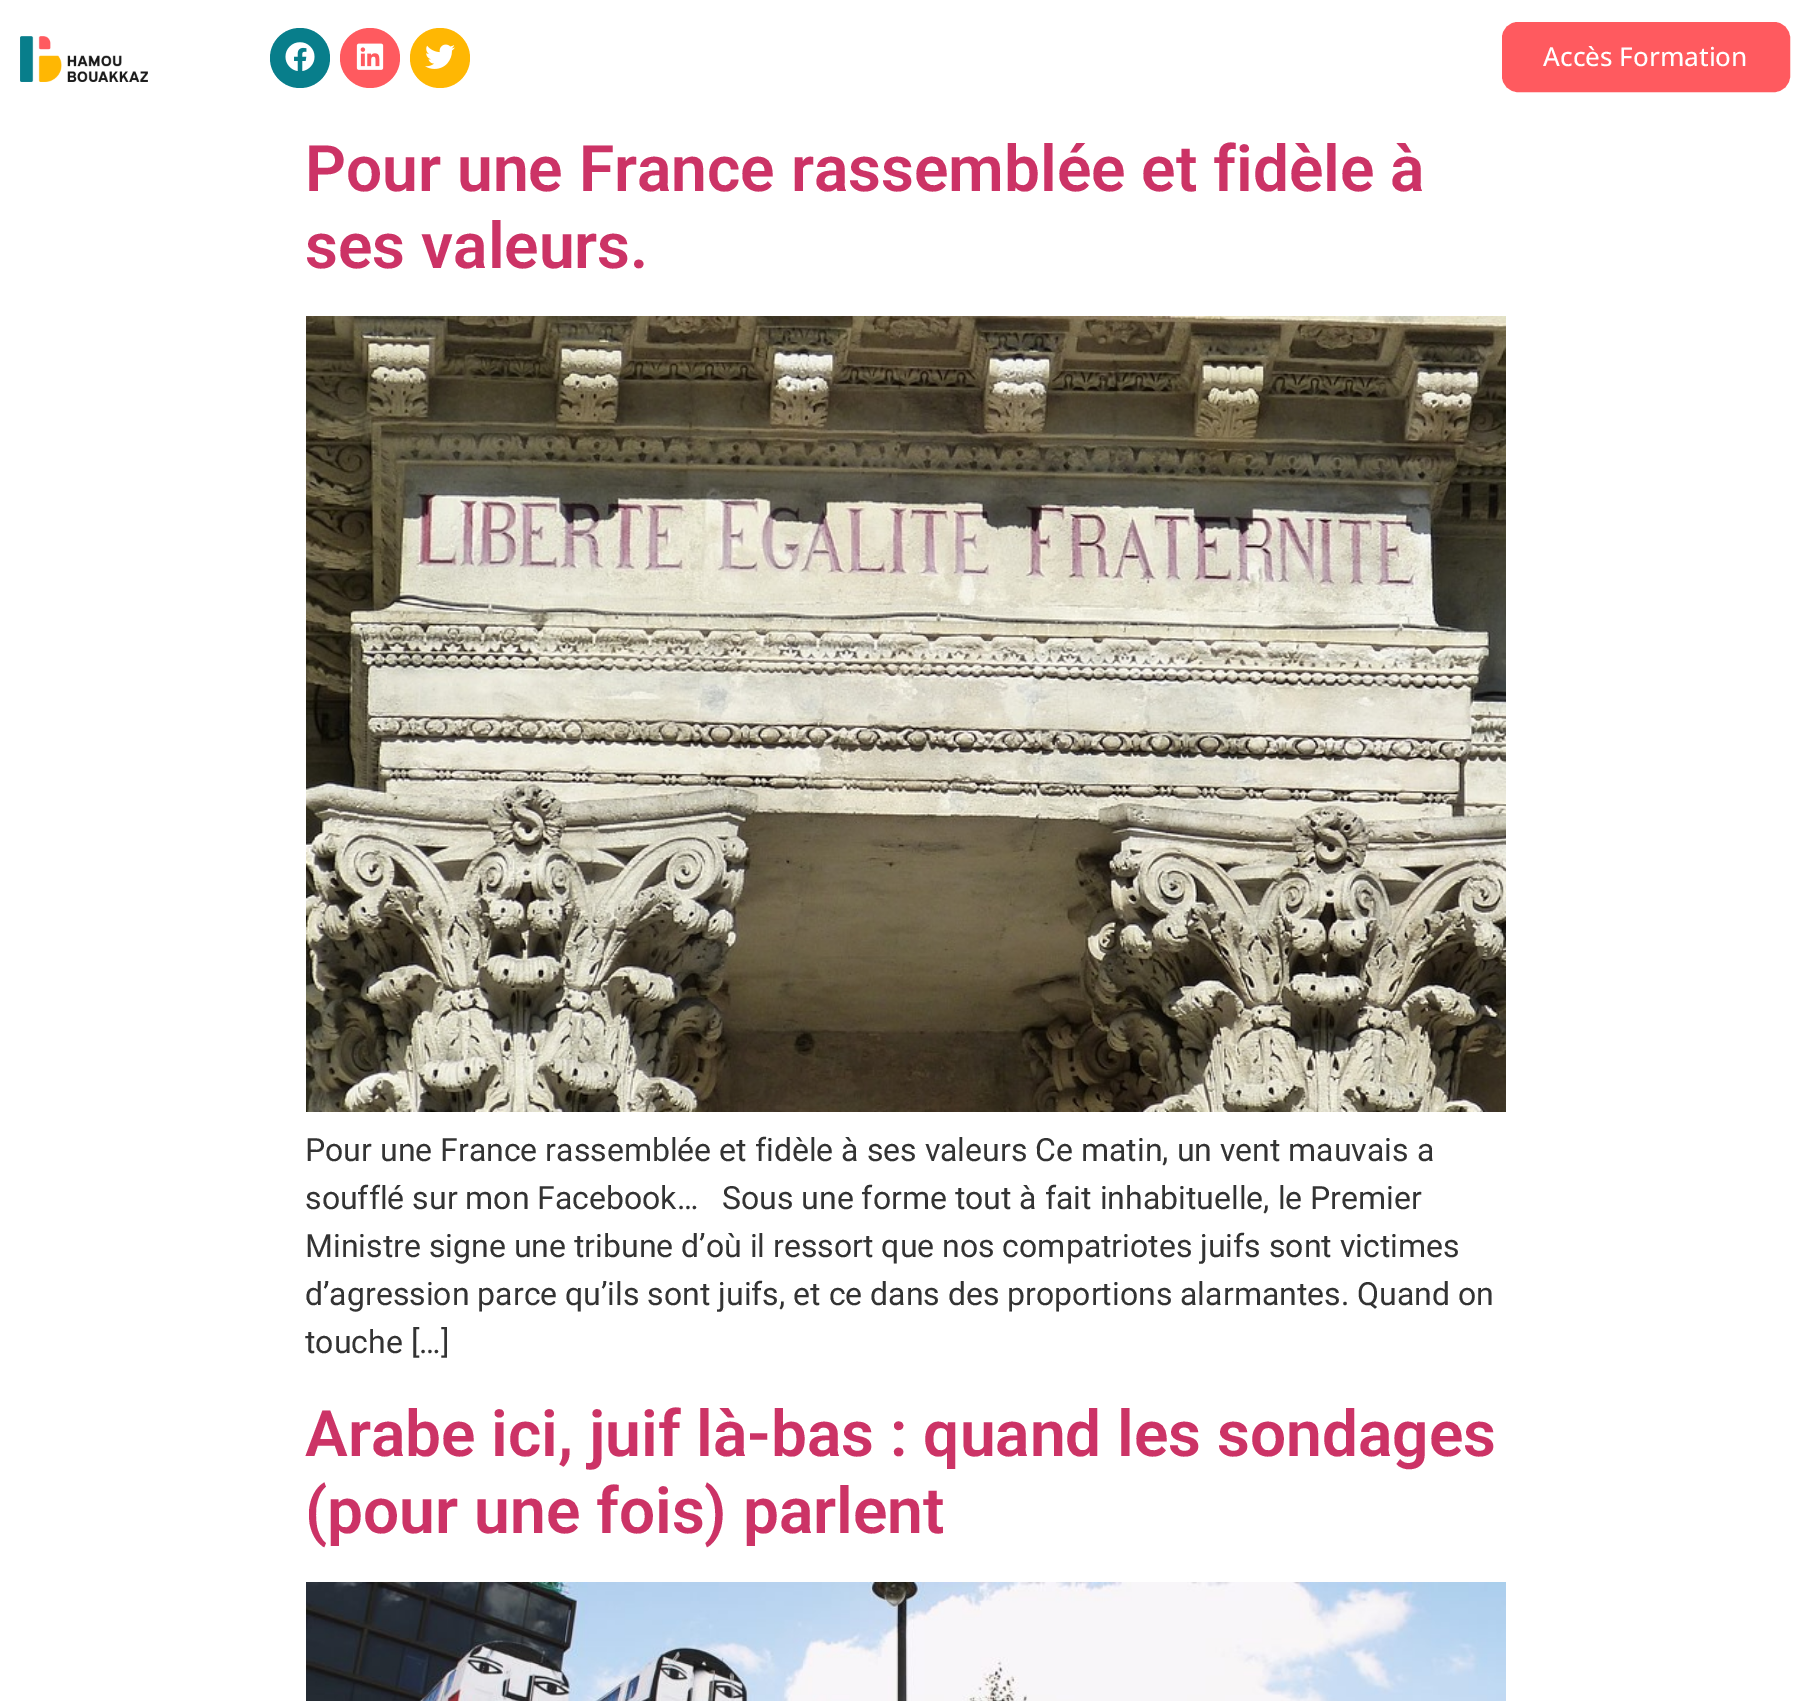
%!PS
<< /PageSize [1810 1701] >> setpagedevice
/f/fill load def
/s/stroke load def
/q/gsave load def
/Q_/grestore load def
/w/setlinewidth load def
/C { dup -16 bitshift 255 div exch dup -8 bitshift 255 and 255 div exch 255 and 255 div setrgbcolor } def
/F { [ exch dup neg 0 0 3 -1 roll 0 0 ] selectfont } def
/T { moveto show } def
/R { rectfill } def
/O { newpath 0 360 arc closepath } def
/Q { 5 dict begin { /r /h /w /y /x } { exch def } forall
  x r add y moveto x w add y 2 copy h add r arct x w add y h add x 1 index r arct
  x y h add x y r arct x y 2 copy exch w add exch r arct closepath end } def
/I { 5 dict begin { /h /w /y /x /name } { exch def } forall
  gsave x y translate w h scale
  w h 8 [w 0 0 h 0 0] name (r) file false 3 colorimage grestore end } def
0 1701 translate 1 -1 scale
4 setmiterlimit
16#FFFFFF C
0 0 1810 1701 R
(1.rgb) 20 36 128 46 I
16#087E8B C
300 58 30 O f
(2.rgb) 285 42 30 29 I
16#FF5A5F C
370 58 30 O f
(3.rgb) 356 43 28 27 I
16#FFB703 C
440 58 30 O f
(4.rgb) 425 44 30 25 I
16#FF5A5F C
1503 23 286 68 15 Q q f Q_
2 w
s
/OpenSans-Medium 26 F
16#FFFFFF C
(Accès Formation) 1543 66 T
/Roboto-SemiBold 64 F
16#CC3366 C
(Pour une France rassemblée et fidèle à) 305 191 T
(ses valeurs.) 305 268 T
(5.rgb) 306 316 1200 796 I
/Roboto-Regular 32 F
16#333333 C
(Pour une France rassemblée et fidèle à ses valeurs Ce matin, un vent mauvais a) 305 1161 T
(soufflé sur mon Facebook…   Sous une forme tout à fait inhabituelle, le Premier) 305 1209 T
(Ministre signe une tribune d’où il ressort que nos compatriotes juifs sont victimes) 305 1257 T
(d’agression parce qu’ils sont juifs, et ce dans des proportions alarmantes. Quand on) 305 1305 T
(touche […]) 305 1353 T
/Roboto-SemiBold 64 F
16#CC3366 C
(Arabe ici, juif là-bas : quand les sondages) 305 1456 T
(\(pour une fois\) parlent) 305 1533 T
(6.rgb) 306 1582 1200 119 I
showpage
